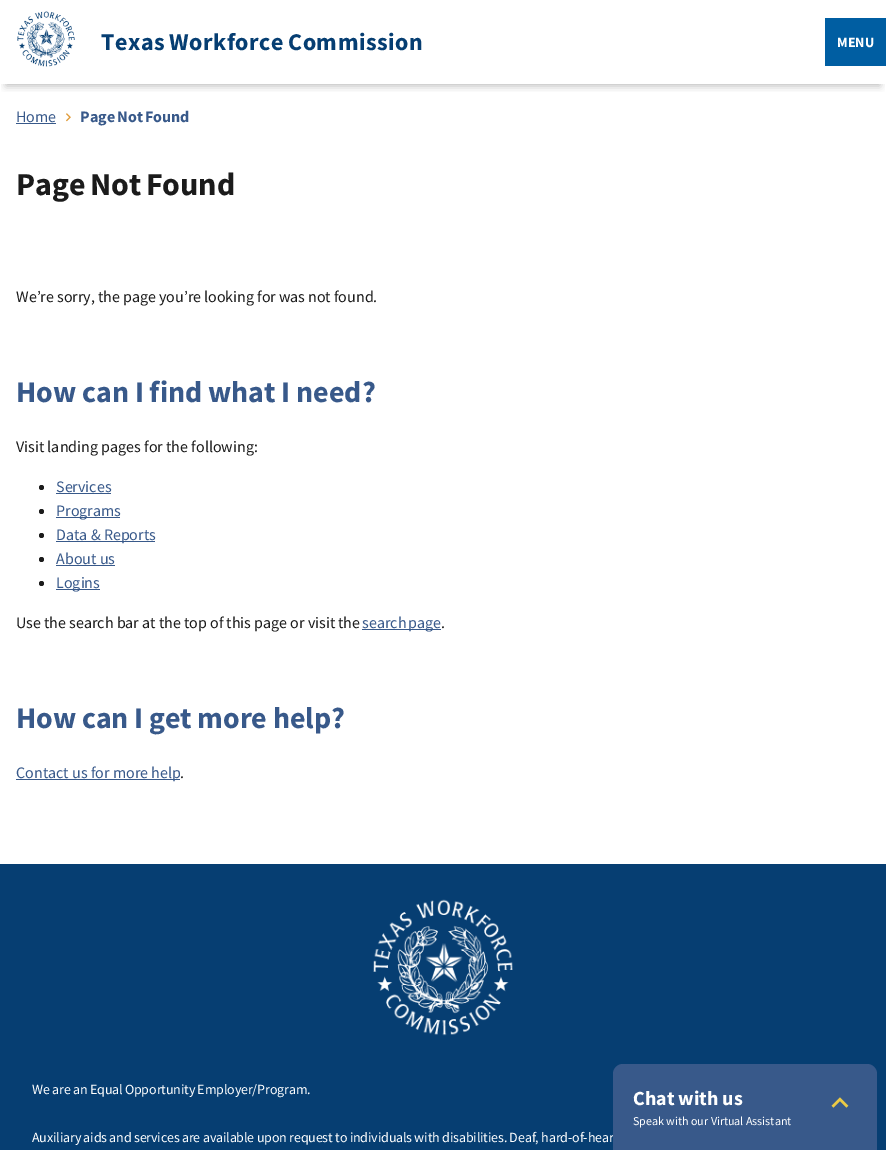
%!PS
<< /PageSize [886 1150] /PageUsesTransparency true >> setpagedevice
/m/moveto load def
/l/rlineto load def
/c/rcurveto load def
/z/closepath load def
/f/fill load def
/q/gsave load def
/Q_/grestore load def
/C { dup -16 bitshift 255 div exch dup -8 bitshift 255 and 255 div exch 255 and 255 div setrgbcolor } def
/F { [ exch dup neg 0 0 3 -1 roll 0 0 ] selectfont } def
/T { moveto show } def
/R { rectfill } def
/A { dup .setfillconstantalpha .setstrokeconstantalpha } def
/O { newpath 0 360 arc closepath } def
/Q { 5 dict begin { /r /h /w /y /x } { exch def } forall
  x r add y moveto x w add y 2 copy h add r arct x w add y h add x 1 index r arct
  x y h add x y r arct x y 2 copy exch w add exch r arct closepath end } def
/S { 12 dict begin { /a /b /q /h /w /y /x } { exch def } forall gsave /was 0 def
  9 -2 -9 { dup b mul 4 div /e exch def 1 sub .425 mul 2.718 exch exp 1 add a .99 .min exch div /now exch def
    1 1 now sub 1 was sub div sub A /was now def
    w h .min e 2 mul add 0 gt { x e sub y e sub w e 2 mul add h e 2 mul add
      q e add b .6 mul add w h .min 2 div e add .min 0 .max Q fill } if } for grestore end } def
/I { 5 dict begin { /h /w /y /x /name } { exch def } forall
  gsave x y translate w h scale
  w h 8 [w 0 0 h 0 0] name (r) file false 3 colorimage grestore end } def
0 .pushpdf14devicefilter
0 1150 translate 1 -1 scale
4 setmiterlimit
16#FFFFFF C
0 0 886 1150 R
q
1 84 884 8 rectclip
16#000000 C
6 14 874 72 0 4 .25 S
Q_
(1.rgb) 17 11 58 56 I
/SourceSansPro-Bold 24 F
16#063E72 C
101 50 m -1 0 32 .5 0 (Texas Workforce Commission) awidthshow
16#005EA2 C
825 18 61 48 R
/SourceSansPro-Bold 14 F
16#FFFFFF C
(MENU) 837 47 T
/SourceSansPro-Regular 16 F
16#38598A C
(Home) 16 122 T
16 123 40 1 R
(2.rgb) 66 113 5 9 I
/SourceSansPro-Bold 16 F
80 122 m -1 0 32 (Page Not Found) widthshow
/SourceSansPro-Bold 32 F
16#1B1B1B C
16 195 m -2 0 32 (Page Not Found) widthshow
/SourceSansPro-Regular 16 F
16 302 m -.25 0 32 (We’re sorry, the page you’re looking for was not found.) widthshow
/SourceSansPro-Bold 30 F
16#38598A C
16 402 m -.25 0 32 (How can I find what I need?) widthshow
/SourceSansPro-Regular 16 F
16#1B1B1B C
(Visit landing pages for the following:) 16 452 T
41.5 487.5 2.5 O f
16#38598A C
(Services) 56 492 T
56 493 55 1 R
16#1B1B1B C
41.5 511.5 2.5 O f
16#38598A C
56 517 64 1 R
(Programs) 56 516 T
16#1B1B1B C
41.5 535.5 2.5 O f
16#38598A C
56 541 99 1 R
(Data & Reports) 56 540 T
16#1B1B1B C
41.5 559.5 2.5 O f
16#38598A C
(About us) 56 564 T
56 565 59 1 R
16#1B1B1B C
41.5 583.5 2.5 O f
16#38598A C
56 589 44 1 R
(Logins) 56 588 T
16#1B1B1B C
16 628 m -.1 0 32 (Use the search bar at the top of this page or visit the) widthshow
16#38598A C
362 629 79 1 R
362 628 m -1 0 32 (search page) widthshow
16#1B1B1B C
(.) 441 628 T
/SourceSansPro-Bold 30 F
16#38598A C
16 728 m -.5 0 32 (How can I get more help?) widthshow
16 779 164 1 R
/SourceSansPro-Regular 16 F
(Contact us for more help) 16 778 T
16#1B1B1B C
(.) 180 778 T
16#063E72 C
0 864 886 286 R
(3.rgb) 373 899 140 137 I
/SourceSansPro-Regular 14 F
16#FFFFFF C
32 1094 m -.25 0 32 -.15 0 (We are an Equal Opportunity Employer/Program.) awidthshow
32 1142 m -.25 0 32 -.15 0 (Auxiliary aids and services are available upon request to individuals with disabilities. Deaf, hard-of-hear) awidthshow
16#38598A C
623 1064 m 244 0 l 5.5 0 10 4.5 10 10 c 0 76 l -264 0 l 0 -76 l 0 -5.5 4.5 -10 10 -10 c z f
/SourceSansPro-Bold 20 F
16#FFFFFF C
(Chat with us) 633 1105 T
/SourceSansPro-Regular 12 F
(Speak with our Virtual Assistant) 633 1125 T
(4.rgb) 831 1097 18 11 I
.poppdf14devicefilter showpage
